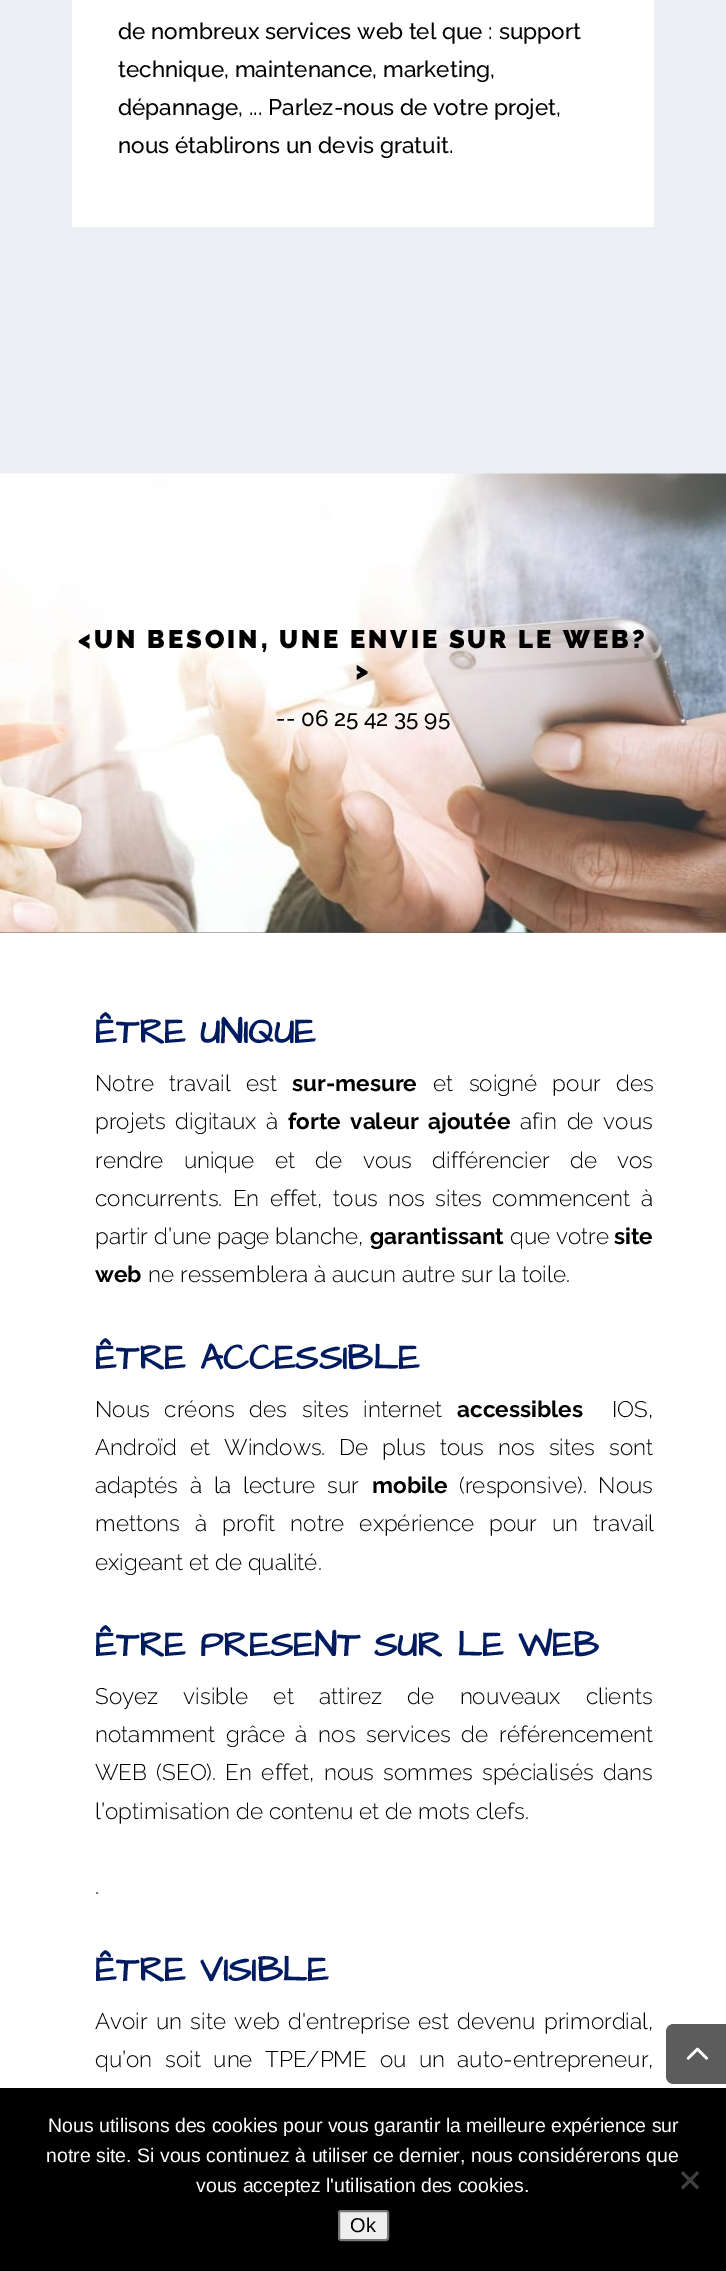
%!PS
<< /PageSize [726 2271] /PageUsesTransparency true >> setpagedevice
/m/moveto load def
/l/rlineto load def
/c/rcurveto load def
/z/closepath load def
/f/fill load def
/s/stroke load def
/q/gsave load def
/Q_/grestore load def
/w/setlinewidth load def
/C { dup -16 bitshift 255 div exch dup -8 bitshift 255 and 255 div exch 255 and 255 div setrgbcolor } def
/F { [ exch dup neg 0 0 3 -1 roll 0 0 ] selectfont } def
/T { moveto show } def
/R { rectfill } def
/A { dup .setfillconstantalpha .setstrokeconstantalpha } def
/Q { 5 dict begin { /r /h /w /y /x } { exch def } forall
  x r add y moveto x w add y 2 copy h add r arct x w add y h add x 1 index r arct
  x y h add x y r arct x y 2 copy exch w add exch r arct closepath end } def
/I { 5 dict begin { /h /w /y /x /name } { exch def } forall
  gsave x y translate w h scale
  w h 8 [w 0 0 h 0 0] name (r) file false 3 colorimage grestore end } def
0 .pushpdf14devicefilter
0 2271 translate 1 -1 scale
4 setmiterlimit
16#FFFFFF C
0 0 726 2271 R
16#EBEFF3 C
0 0 726 474 R
16#FFFFFF C
72 0 582 227 R
/Raleway-Medium 22.5 F
16#000000 C
(de nombreux services web tel que : support) 118 39 T
(technique, maintenance, marketing,) 118 77 T
(dépannage, ... Parlez-nous de votre projet,) 118 115 T
(nous établirons un devis gratuit.) 118 153 T
q 0 932 m 726 0 l 0 1 l -726 0 l z clip newpath
<< /ShadingType 2 /ColorSpace /DeviceRGB /Coords [21 961 705 446] /Extend [true true] /Function << /FunctionType 3 /Domain [0 1] /Functions [<< /FunctionType 2 /Domain [0 1] /C0 [.384 .384 .384] /C1 [.384 .384 .384] /N 1 >> << /FunctionType 2 /Domain [0 1] /C0 [.384 .384 .384] /C1 [.969 .992 .988] /N 1 >> << /FunctionType 2 /Domain [0 1] /C0 [.969 .992 .988] /C1 [.969 .992 .988] /N 1 >>] /Bounds [.43 .92] /Encode [0 1 0 1 0 1] >> >> shfill Q_
(1.rgb) 0 473 726 460 I
/Raleway-Black 25.5 F
78 648 m 3 0 (<UN BESOIN, UNE ENVIE SUR LE WEB?) ashow
355 679 m 3 0 (>) ashow
/Raleway-Medium 22.5 F
(-- 06 25 42 35 95) 276 726 T
/ArchitectsDaughter-Bold 36 F
16#001B60 C
(ÊTRE UNIQUE) 95 1043 T
/Raleway-Light 22.5 F
16#000000 C
95 1091 m 9.5 0 32 (Notre travail est) widthshow
/Raleway-Bold 22.5 F
(sur-mesure) 292 1091 T
/Raleway-Light 22.5 F
433 1091 m 9.5 0 32 (et soigné pour des) widthshow
95 1129 m 4 0 32 (projets digitaux à) widthshow
/Raleway-Bold 22.5 F
288 1129 m 4 0 32 (forte valeur ajoutée) widthshow
/Raleway-Light 22.5 F
520 1129 m 4 0 32 (afin de vous) widthshow
95 1168 m 14.5 0 32 (rendre unique et de vous différencier de vos) widthshow
95 1206 m 4.5 0 32 (concurrents. En effet, tous nos sites commencent à) widthshow
(partir d’une page blanche,) 95 1244 T
/Raleway-Bold 22.5 F
(garantissant) 370 1244 T
/Raleway-Light 22.5 F
(que votre) 510 1244 T
/Raleway-Bold 22.5 F
(site) 614 1244 T
(web) 95 1282 T
/Raleway-Light 22.5 F
(ne ressemblera à aucun autre sur la toile.) 148 1282 T
/ArchitectsDaughter-Bold 36 F
16#001B60 C
(ÊTRE ACCESSIBLE) 95 1369 T
/Raleway-Light 22.5 F
16#000000 C
95 1417 m 9 0 32 (Nous créons des sites internet) widthshow
/Raleway-Bold 22.5 F
(accessibles) 457 1417 T
/Raleway-Light 22.5 F
(IOS,) 612 1417 T
95 1455 m 8 0 32 (Androïd et Windows. De plus tous nos sites sont) widthshow
95 1493 m 6 0 32 (adaptés à la lecture sur) widthshow
/Raleway-Bold 22.5 F
(mobile) 372 1493 T
/Raleway-Light 22.5 F
459 1493 m 6 0 32 (\(responsive\). Nous) widthshow
95 1531 m 9 0 32 (mettons à profit notre expérience pour un travail) widthshow
(exigeant et de qualité.) 95 1570 T
/ArchitectsDaughter-Bold 36 F
16#001B60 C
(ÊTRE PRESENT SUR LE WEB) 95 1656 T
/Raleway-Light 22.5 F
16#000000 C
95 1704 m 19.5 0 32 (Soyez visible et attirez de nouveaux clients) widthshow
95 1742 m 5 0 32 (notamment grâce à nos services de référencement) widthshow
95 1780 m 3.5 0 32 (WEB \(SEO\). En effet, nous sommes spécialisés dans) widthshow
(l’optimisation de contenu et de mots clefs.) 95 1819 T
(.) 95 1894 T
/ArchitectsDaughter-Bold 36 F
16#001B60 C
(ÊTRE VISIBLE) 95 1981 T
/Raleway-Light 22.5 F
16#000000 C
95 2029 m 2.5 0 32 (Avoir un site web d'entreprise est devenu primordial,) widthshow
95 2067 m 6.75 0 32 (qu’on soit une TPE/PME ou un auto-entrepreneur,) widthshow
16#999999 C
674 2024 m 52 0 l 0 60 l -52 0 l -4.5 0 -8 -3.5 -8 -8 c 0 -44 l 0 -4.5 3.5 -8 8 -8 c z f
(2.rgb) 686 2047 22 13 I
0.4 A
16#000000 C
674 2024 m 52 0 l 0 60 l -52 0 l -4.5 0 -8 -3.5 -8 -8 c 0 -44 l 0 -4.5 3.5 -8 8 -8 c z f
1 A
(3.rgb) 686 2047 22 13 I
0 2088 726 183 R
/LiberationSans-Regular 19.5 F
16#FFFFFF C
(Nous utilisons des cookies pour vous garantir la meilleure expérience sur) 48 2132 T
(notre site. Si vous continuez à utiliser ce dernier, nous considérerons que) 46 2162 T
(vous acceptez l'utilisation des cookies.) 196 2192 T
16#404040 C
697 2171 m 2 2.5 l -16 16 l -2 -2.5 l z f
681 2173.5 m 2 -2.5 l 16 16 l -2 2.5 l z f
16#EFEFEF C
339 2211 49 29 2 Q q f Q_
16#767676 C
2 w
s
/LiberationSans-Regular 20 F
16#000000 C
(Ok) 350 2232 T
.poppdf14devicefilter showpage
